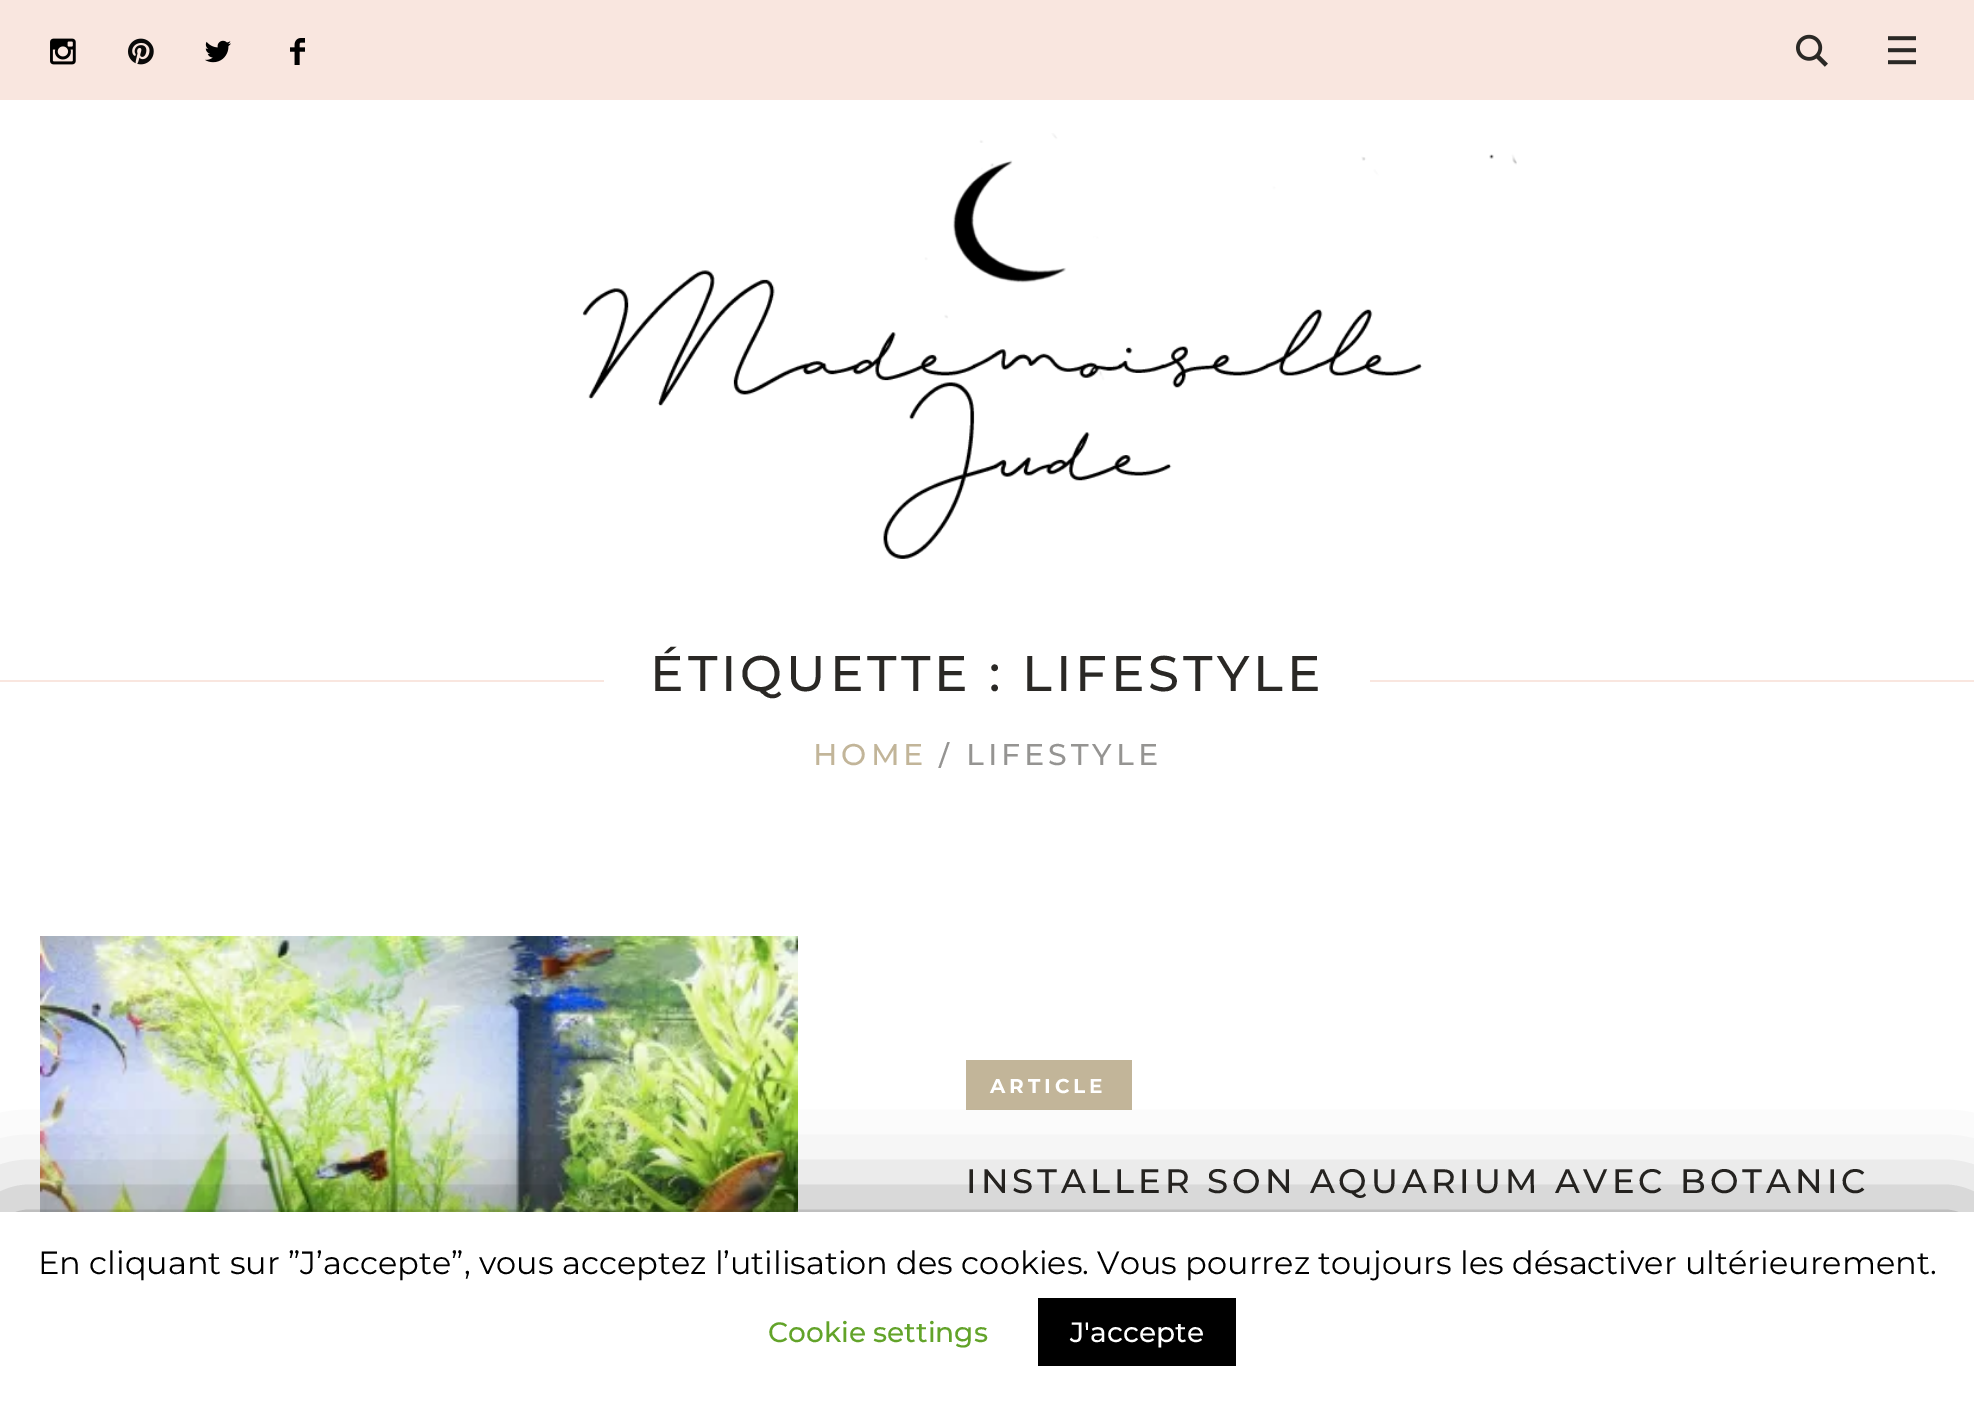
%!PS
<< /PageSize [1974 1401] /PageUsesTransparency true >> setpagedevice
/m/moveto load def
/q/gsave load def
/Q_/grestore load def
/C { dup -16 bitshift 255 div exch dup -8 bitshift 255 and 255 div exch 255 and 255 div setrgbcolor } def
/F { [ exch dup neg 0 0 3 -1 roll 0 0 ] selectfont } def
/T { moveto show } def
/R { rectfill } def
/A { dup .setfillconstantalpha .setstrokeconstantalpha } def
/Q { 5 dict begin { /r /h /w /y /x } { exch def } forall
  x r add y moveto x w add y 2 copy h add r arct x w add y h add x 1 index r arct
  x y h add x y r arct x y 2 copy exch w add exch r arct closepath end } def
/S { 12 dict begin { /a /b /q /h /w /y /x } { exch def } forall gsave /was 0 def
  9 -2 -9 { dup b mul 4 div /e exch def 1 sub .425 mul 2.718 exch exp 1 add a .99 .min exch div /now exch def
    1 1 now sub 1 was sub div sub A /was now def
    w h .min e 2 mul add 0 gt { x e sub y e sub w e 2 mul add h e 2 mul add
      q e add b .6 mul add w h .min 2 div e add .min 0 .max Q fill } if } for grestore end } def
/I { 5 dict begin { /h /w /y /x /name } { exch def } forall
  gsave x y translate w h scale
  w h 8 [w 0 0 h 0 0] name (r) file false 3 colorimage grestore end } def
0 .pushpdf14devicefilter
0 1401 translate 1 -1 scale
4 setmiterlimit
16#FFFFFF C
0 0 1974 1401 R
16#F9E6DF C
0 0 1974 100 R
(1.rgb) 50 38 26 27 I
(2.rgb) 128 38 26 27 I
(3.rgb) 205 40 26 23 I
(4.rgb) 290 38 15 27 I
(5.rgb) 1796 34 32 33 I
(6.rgb) 1888 36 28 29 I
(7.rgb) 582 133 935 426 I
0 680 1974 2 R
16#FFFFFF C
604 680 766 2 R
/Montserrat-Medium 50 F
16#2A2825 C
650 691 m 4 0 (ÉTIQUETTE : LIFESTYLE) ashow
/Montserrat-Medium 30 F
16#C2B599 C
813 765 m 4 0 (HOME) ashow
q
40 742 1894 28 rectclip
16#959492 C
939 765 m 4 0 (/) ashow
Q_
16#959492 C
966 765 m 4 0 (LIFESTYLE) ashow
(8.rgb) 40 936 758 276 I
16#C2B599 C
966 1060 166 50 R
/Montserrat-Bold 20 F
16#FFFFFF C
990 1093 m 4 0 (ARTICLE) ashow
/Montserrat-Medium 34 F
16#2A2825 C
966 1193 m 4 0 (INSTALLER SON AQUARIUM AVEC BOTANIC) ashow
16#000000 C
0 1222 1974 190 0 50 .5 S
16#FFFFFF C
0 1212 1974 189 R
/Montserrat-Regular 32 F
16#000000 C
(En cliquant sur ”J’accepte”, vous acceptez l’utilisation des cookies. Vous pourrez toujours les désactiver ultérieurement.) 38 1274 T
/Montserrat-Medium 28 F
16#62A329 C
(Cookie settings) 768 1342 T
16#000000 C
1038 1298 198 68 R
16#FFFFFF C
(J'accepte) 1070 1342 T
.poppdf14devicefilter showpage
